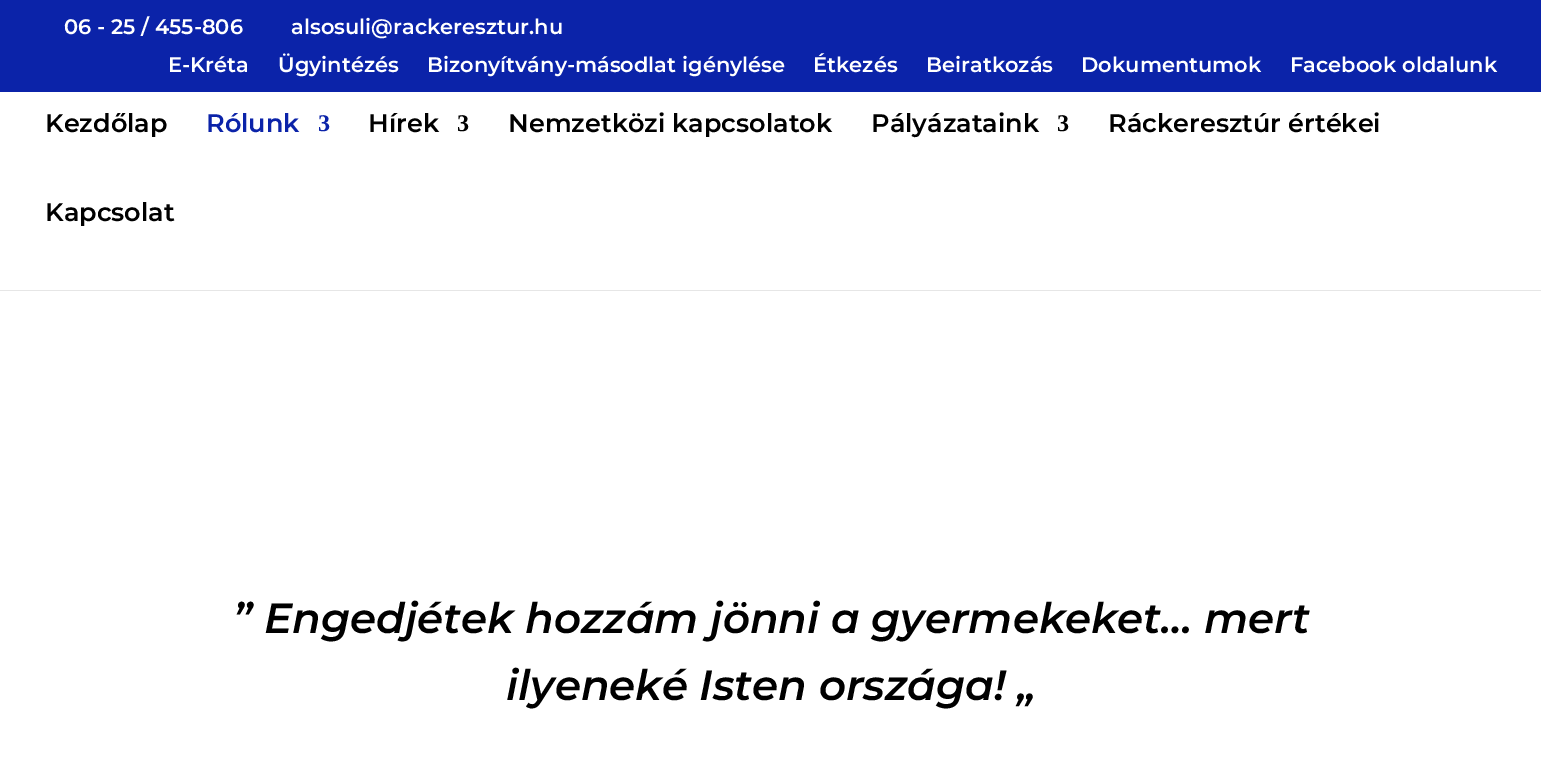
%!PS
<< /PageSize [1541 761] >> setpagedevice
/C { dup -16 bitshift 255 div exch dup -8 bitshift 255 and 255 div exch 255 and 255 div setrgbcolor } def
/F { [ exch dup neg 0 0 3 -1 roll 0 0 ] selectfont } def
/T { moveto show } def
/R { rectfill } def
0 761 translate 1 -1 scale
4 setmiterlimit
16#FFFFFF C
0 0 1541 761 R
16#0B23A9 C
0 0 1541 92 R
/Montserrat-SemiBold 21 F
16#FFFFFF C
(06 - 25 / 455-806) 64 34 T
(alsosuli@rackeresztur.hu) 291 34 T
(E-Kréta) 168 72 T
(Ügyintézés) 278 72 T
(Bizonyítvány-másodlat igénylése) 427 72 T
(Étkezés) 813 72 T
(Beiratkozás) 926 72 T
(Dokumentumok) 1081 72 T
(Facebook oldalunk) 1290 72 T
16#E6E6E6 C
0 290 1541 1 R
/Montserrat-SemiBold 25.5 F
16#000000 C
(Kezdőlap) 45 132 T
16#0B23A9 C
(Rólunk) 206 132 T
/LiberationSerif-Bold 24 F
(3) 318 131 T
/Montserrat-SemiBold 25.5 F
16#000000 C
(Hírek) 368 132 T
/LiberationSerif-Bold 24 F
(3) 457 131 T
/Montserrat-SemiBold 25.5 F
(Nemzetközi kapcsolatok) 508 132 T
(Pályázataink) 871 132 T
/LiberationSerif-Bold 24 F
(3) 1057 131 T
/Montserrat-SemiBold 25.5 F
(Ráckeresztúr értékei) 1108 132 T
(Kapcsolat) 45 221 T
/Montserrat-SemiBoldItalic 42 F
(” Engedjétek hozzám jönni a gyermekeket… mert) 233 633 T
(ilyeneké Isten országa! „) 506 700 T
showpage
